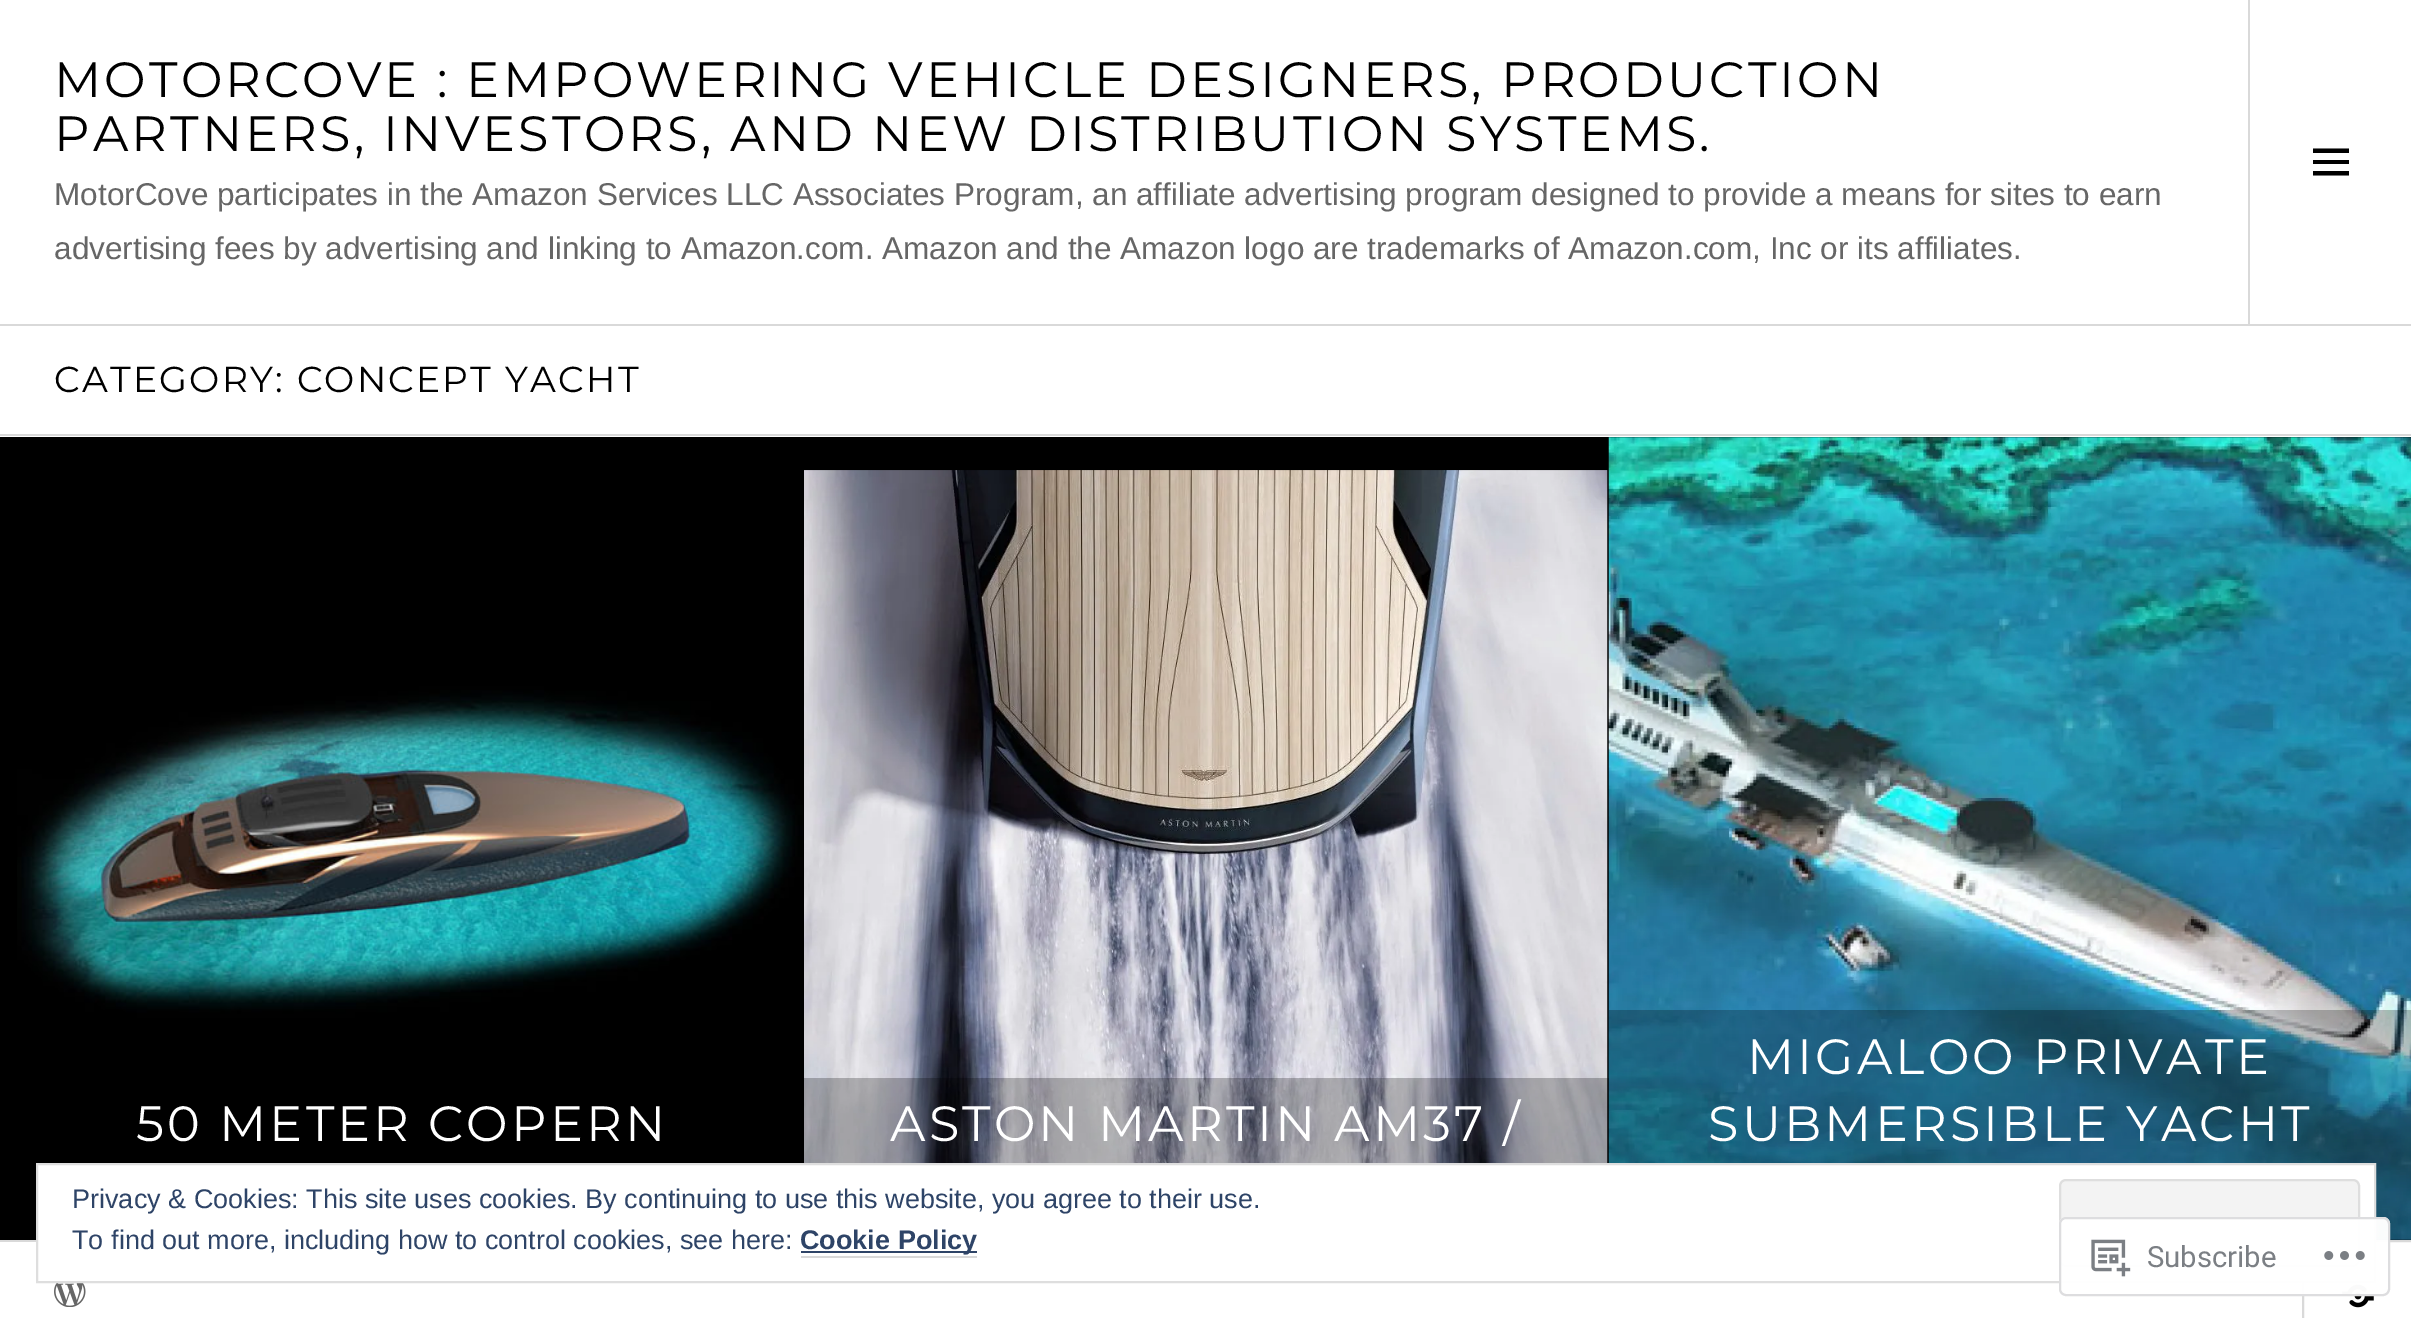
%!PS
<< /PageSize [2411 1318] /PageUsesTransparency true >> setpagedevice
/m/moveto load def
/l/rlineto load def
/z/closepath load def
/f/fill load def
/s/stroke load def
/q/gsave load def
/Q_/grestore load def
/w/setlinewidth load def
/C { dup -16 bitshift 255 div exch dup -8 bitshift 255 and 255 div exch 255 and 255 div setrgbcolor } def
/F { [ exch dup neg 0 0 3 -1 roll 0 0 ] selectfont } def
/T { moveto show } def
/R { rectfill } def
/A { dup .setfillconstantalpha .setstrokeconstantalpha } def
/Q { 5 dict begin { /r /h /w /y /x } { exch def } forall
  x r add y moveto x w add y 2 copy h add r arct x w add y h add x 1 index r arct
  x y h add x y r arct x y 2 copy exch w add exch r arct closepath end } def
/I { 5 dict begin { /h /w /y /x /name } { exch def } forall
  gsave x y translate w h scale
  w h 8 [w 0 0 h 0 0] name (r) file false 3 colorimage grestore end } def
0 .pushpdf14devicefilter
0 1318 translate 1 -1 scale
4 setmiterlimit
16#FFFFFF C
0 0 2411 1318 R
16#D9D9D9 C
0 324 2411 2 R
/Montserrat-Regular 49.5 F
16#000000 C
54 97 m 3.1 0 (MOTORCOVE : EMPOWERING VEHICLE DESIGNERS, PRODUCTION) ashow
54 151 m 3.1 0 (PARTNERS, INVESTORS, AND NEW DISTRIBUTION SYSTEMS.) ashow
/Arimo-Regular 31.5 F
16#666666 C
(MotorCove participates in the Amazon Services LLC Associates Program, an affiliate advertising program designed to provide a means for sites to earn) 54 205 T
(advertising fees by advertising and linking to Amazon.com. Amazon and the Amazon logo are trademarks of Amazon.com, Inc or its affiliates.) 54 259 T
16#D9D9D9 C
2248 0 2 324 R
16#000000 C
2313 175.5 m 0 -4.5 l 36 0 l 0 4.5 l z 2313 148.5 m 36 0 l 0 4.5 l -36 0 l z 2313 164 m 0 -4 l 36 0 l 0 4 l z f
16#D9D9D9 C
0 434 2411 2 R
/Montserrat-Regular 36 F
16#000000 C
54 392 m 2.25 0 (CATEGORY: CONCEPT YACHT) ashow
0 437 803 803 R
(1.rgb) 17 648 786 381 I
/Montserrat-Regular 49.5 F
16#FFFFFF C
136 1141 m 3.1 0 (50 METER COPERN) ashow
16#000000 C
803 437 806 726 R
(2.rgb) 804 470 804 693 I
(3.rgb) 1608 437 803 803 I
0.25 A
804 1078 805 85 R
1 A
16#FFFFFF C
890 1141 m 3.1 0 (ASTON MARTIN AM37 /) ashow
0.25 A
16#000000 C
1609 1010 802 230 R
1 A
16#FFFFFF C
1747 1074 m 3.1 0 (MIGALOO PRIVATE) ashow
1708 1141 m 3.1 0 (SUBMERSIBLE YACHT) ashow
16#D9D9D9 C
0 1240 2411 2 R
(4.rgb) 54 1283 32 24 I
q
0 1242 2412 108 rectclip
2 w
2303 1241 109 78 rectstroke
Q_
(5.rgb) 2342 1284 32 24 I
16#FFFFFF C
37 1164 m 2338 0 l 0 118 l -2338 0 l z q f Q_
16#DEDEDE C
2 w
s
/Arimo-Regular 27 F
16#2E4467 C
(Privacy & Cookies: This site uses cookies. By continuing to use this website, you agree to their use.) 72 1208 T
16#F3F3F3 C
2060 1180 299 86 6 Q q f Q_
16#DEDEDE C
s
16#2E4467 C
(To find out more, including how to control cookies, see here:) 72 1249 T
801 1251 176 2 R
/Arimo-Bold 27 F
(Cookie Policy) 800 1249 T
16#D9D9D9 C
801 1256 176 2 R
0.98 A
16#FFFFFF C
2059 1217 331 79 7 Q f
16#DCDCDE C
2060 1218 329 77 6 Q s
1 A
(6.rgb) 2091 1239 40 38 I
/Roboto-Regular 29.25 F
16#7B7F84 C
(Subscribe) 2147 1267 T
(7.rgb) 2324 1251 41 9 I
.poppdf14devicefilter showpage
